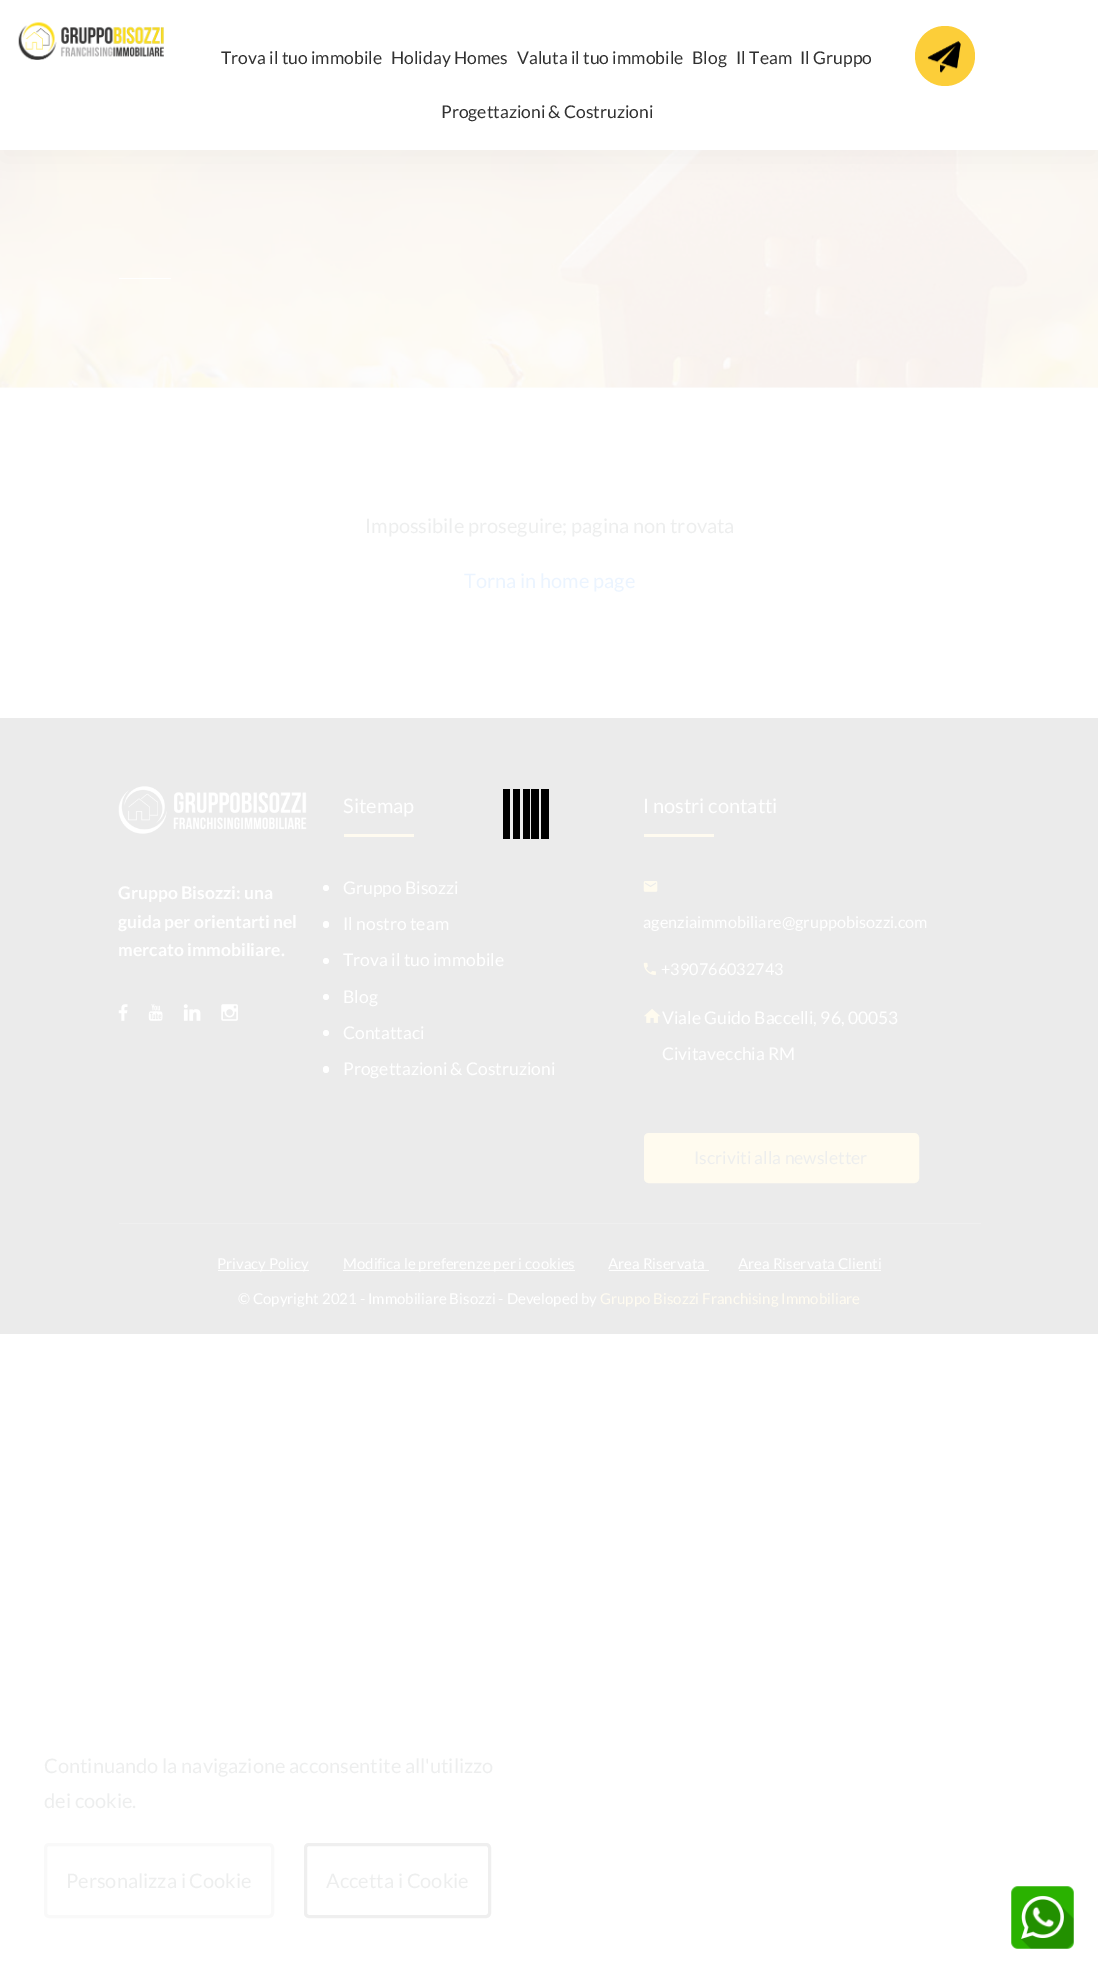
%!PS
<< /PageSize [1098 1961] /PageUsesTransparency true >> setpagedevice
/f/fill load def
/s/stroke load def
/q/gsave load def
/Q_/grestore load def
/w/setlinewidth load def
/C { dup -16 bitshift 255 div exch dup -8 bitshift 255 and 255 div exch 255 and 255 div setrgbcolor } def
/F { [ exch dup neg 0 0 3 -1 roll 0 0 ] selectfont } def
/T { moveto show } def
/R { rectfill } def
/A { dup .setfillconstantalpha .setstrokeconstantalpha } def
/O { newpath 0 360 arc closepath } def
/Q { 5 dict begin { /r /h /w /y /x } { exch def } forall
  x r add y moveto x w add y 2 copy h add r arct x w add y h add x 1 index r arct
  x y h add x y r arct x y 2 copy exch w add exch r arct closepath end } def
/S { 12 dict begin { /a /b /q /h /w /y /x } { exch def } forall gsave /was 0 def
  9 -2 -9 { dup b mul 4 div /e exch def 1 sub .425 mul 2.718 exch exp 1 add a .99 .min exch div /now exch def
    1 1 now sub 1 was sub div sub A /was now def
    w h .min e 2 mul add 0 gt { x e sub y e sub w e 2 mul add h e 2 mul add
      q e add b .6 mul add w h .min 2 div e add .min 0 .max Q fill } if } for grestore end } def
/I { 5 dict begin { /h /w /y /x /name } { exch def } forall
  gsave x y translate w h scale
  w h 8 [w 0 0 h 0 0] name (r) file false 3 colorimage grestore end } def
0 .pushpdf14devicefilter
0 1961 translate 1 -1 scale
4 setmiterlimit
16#FFFFFF C
0 0 1098 1961 R
(3.rgb) 0 150 1098 238 I
16#000000 C
0 10 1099 150 0 15.5 .04 S
16#FFFFFF C
0 0 1098 150 R
(1.rgb) 18 22 146 38 I
/Lato-Regular 17.5 F
16#313131 C
(Trova il tuo immobile) 221 64 T
(Holiday Homes) 391 64 T
(Valuta il tuo immobile) 517 64 T
(Blog) 692 64 T
(Il Team) 736 64 T
(Il Gruppo) 800 64 T
(Progettazioni & Costruzioni) 441 118 T
16#FCCE39 C
945 56 30 O f
(2.rgb) 927 41 34 32 I
16#FFFFFF C
119 278 52 1 R
/Lato-Regular 20 F
16#EDEEEE C
(Impossibile proseguire; pagina non trovata) 365 533 T
16#EBF4FF C
(Torna in home page) 464 588 T
16#EBEBEB C
0 718 1098 616 R
16#000000 C
503 789 7 50 R
513 789 7 50 R
523 789 7 50 R
531 789 8 50 R
541 789 8 50 R
(4.rgb) 118 786 189 48 I
/Lato-Bold 17.5 F
16#FFFFFF C
(Gruppo Bisozzi: una) 118 899 T
(guida per orientarti nel) 118 928 T
(mercato immobiliare.) 118 956 T
(5.rgb) 118 1004 10 17 I
(6.rgb) 148 1004 15 17 I
(7.rgb) 183 1004 18 17 I
(8.rgb) 221 1004 17 17 I
/Lato-Regular 20 F
(Sitemap) 343 813 T
16#FFFBF0 C
344 834 70 3 R
16#FFFFFF C
326 888 3 O f
/Lato-Regular 17.5 F
(Gruppo Bisozzi) 343 894 T
323 921 6 7 3 Q f
(Il nostro team) 343 930 T
326 961 3 O f
(Trova il tuo immobile) 343 966 T
326 997 3 O f
(Blog) 343 1003 T
326 1033 3 O f
(Contattaci) 343 1039 T
323 1066 6 7 3 Q f
(Progettazioni & Costruzioni) 343 1075 T
/Lato-Regular 20 F
(I nostri contatti) 643 813 T
16#FFFBF0 C
644 834 70 3 R
(9.rgb) 643 881 15 11 I
/Lato-Regular 16.25 F
16#FFFFFF C
(agenziaimmobiliare@gruppobisozzi.com) 643 928 T
(10.rgb) 643 962 13 13 I
(+390766032743) 661 975 T
(11.rgb) 643 1008 18 15 I
/Lato-Regular 17.5 F
(Viale Guido Baccelli, 96, 00053) 662 1024 T
(Civitavecchia RM) 662 1060 T
16#FFFBEF C
645.5 1134.5 272 47 3.5 Q q f Q_
3 w
s
16#EDEEEE C
(Iscriviti alla newsletter) 694 1164 T
16#EFEFEF C
119 1223 862 1 R
16#FFFFFF C
218 1270 91 1 R
/Lato-Regular 15 F
(Privacy Policy) 217 1269 T
343 1270 232 1 R
(Modifica le preferenze per i cookies) 343 1269 T
(Area Riservata) 608 1269 T
609 1270 100 1 R
(Area Riservata Clienti) 738 1269 T
739 1270 142 1 R
(© Copyright 2021 - Immobiliare Bisozzi - Developed by) 238 1304 T
16#FFFBF0 C
(Gruppo Bisozzi Franchising Immobiliare) 600 1304 T
/Lato-Regular 20 F
16#EDEEEE C
(Continuando la navigazione acconsentite all'utilizzo) 44 1773 T
(dei cookie.) 44 1808 T
16#F9F9F9 C
45.5 1844.5 227 72 3.5 Q s
16#EDEEEE C
(Personalizza i Cookie) 66 1888 T
16#EFEFEF C
305.5 1844.5 184 72 3.5 Q s
16#EDEEEE C
(Accetta i Cookie) 326 1888 T
(12.rgb) 1011 1886 63 63 I
.poppdf14devicefilter showpage
